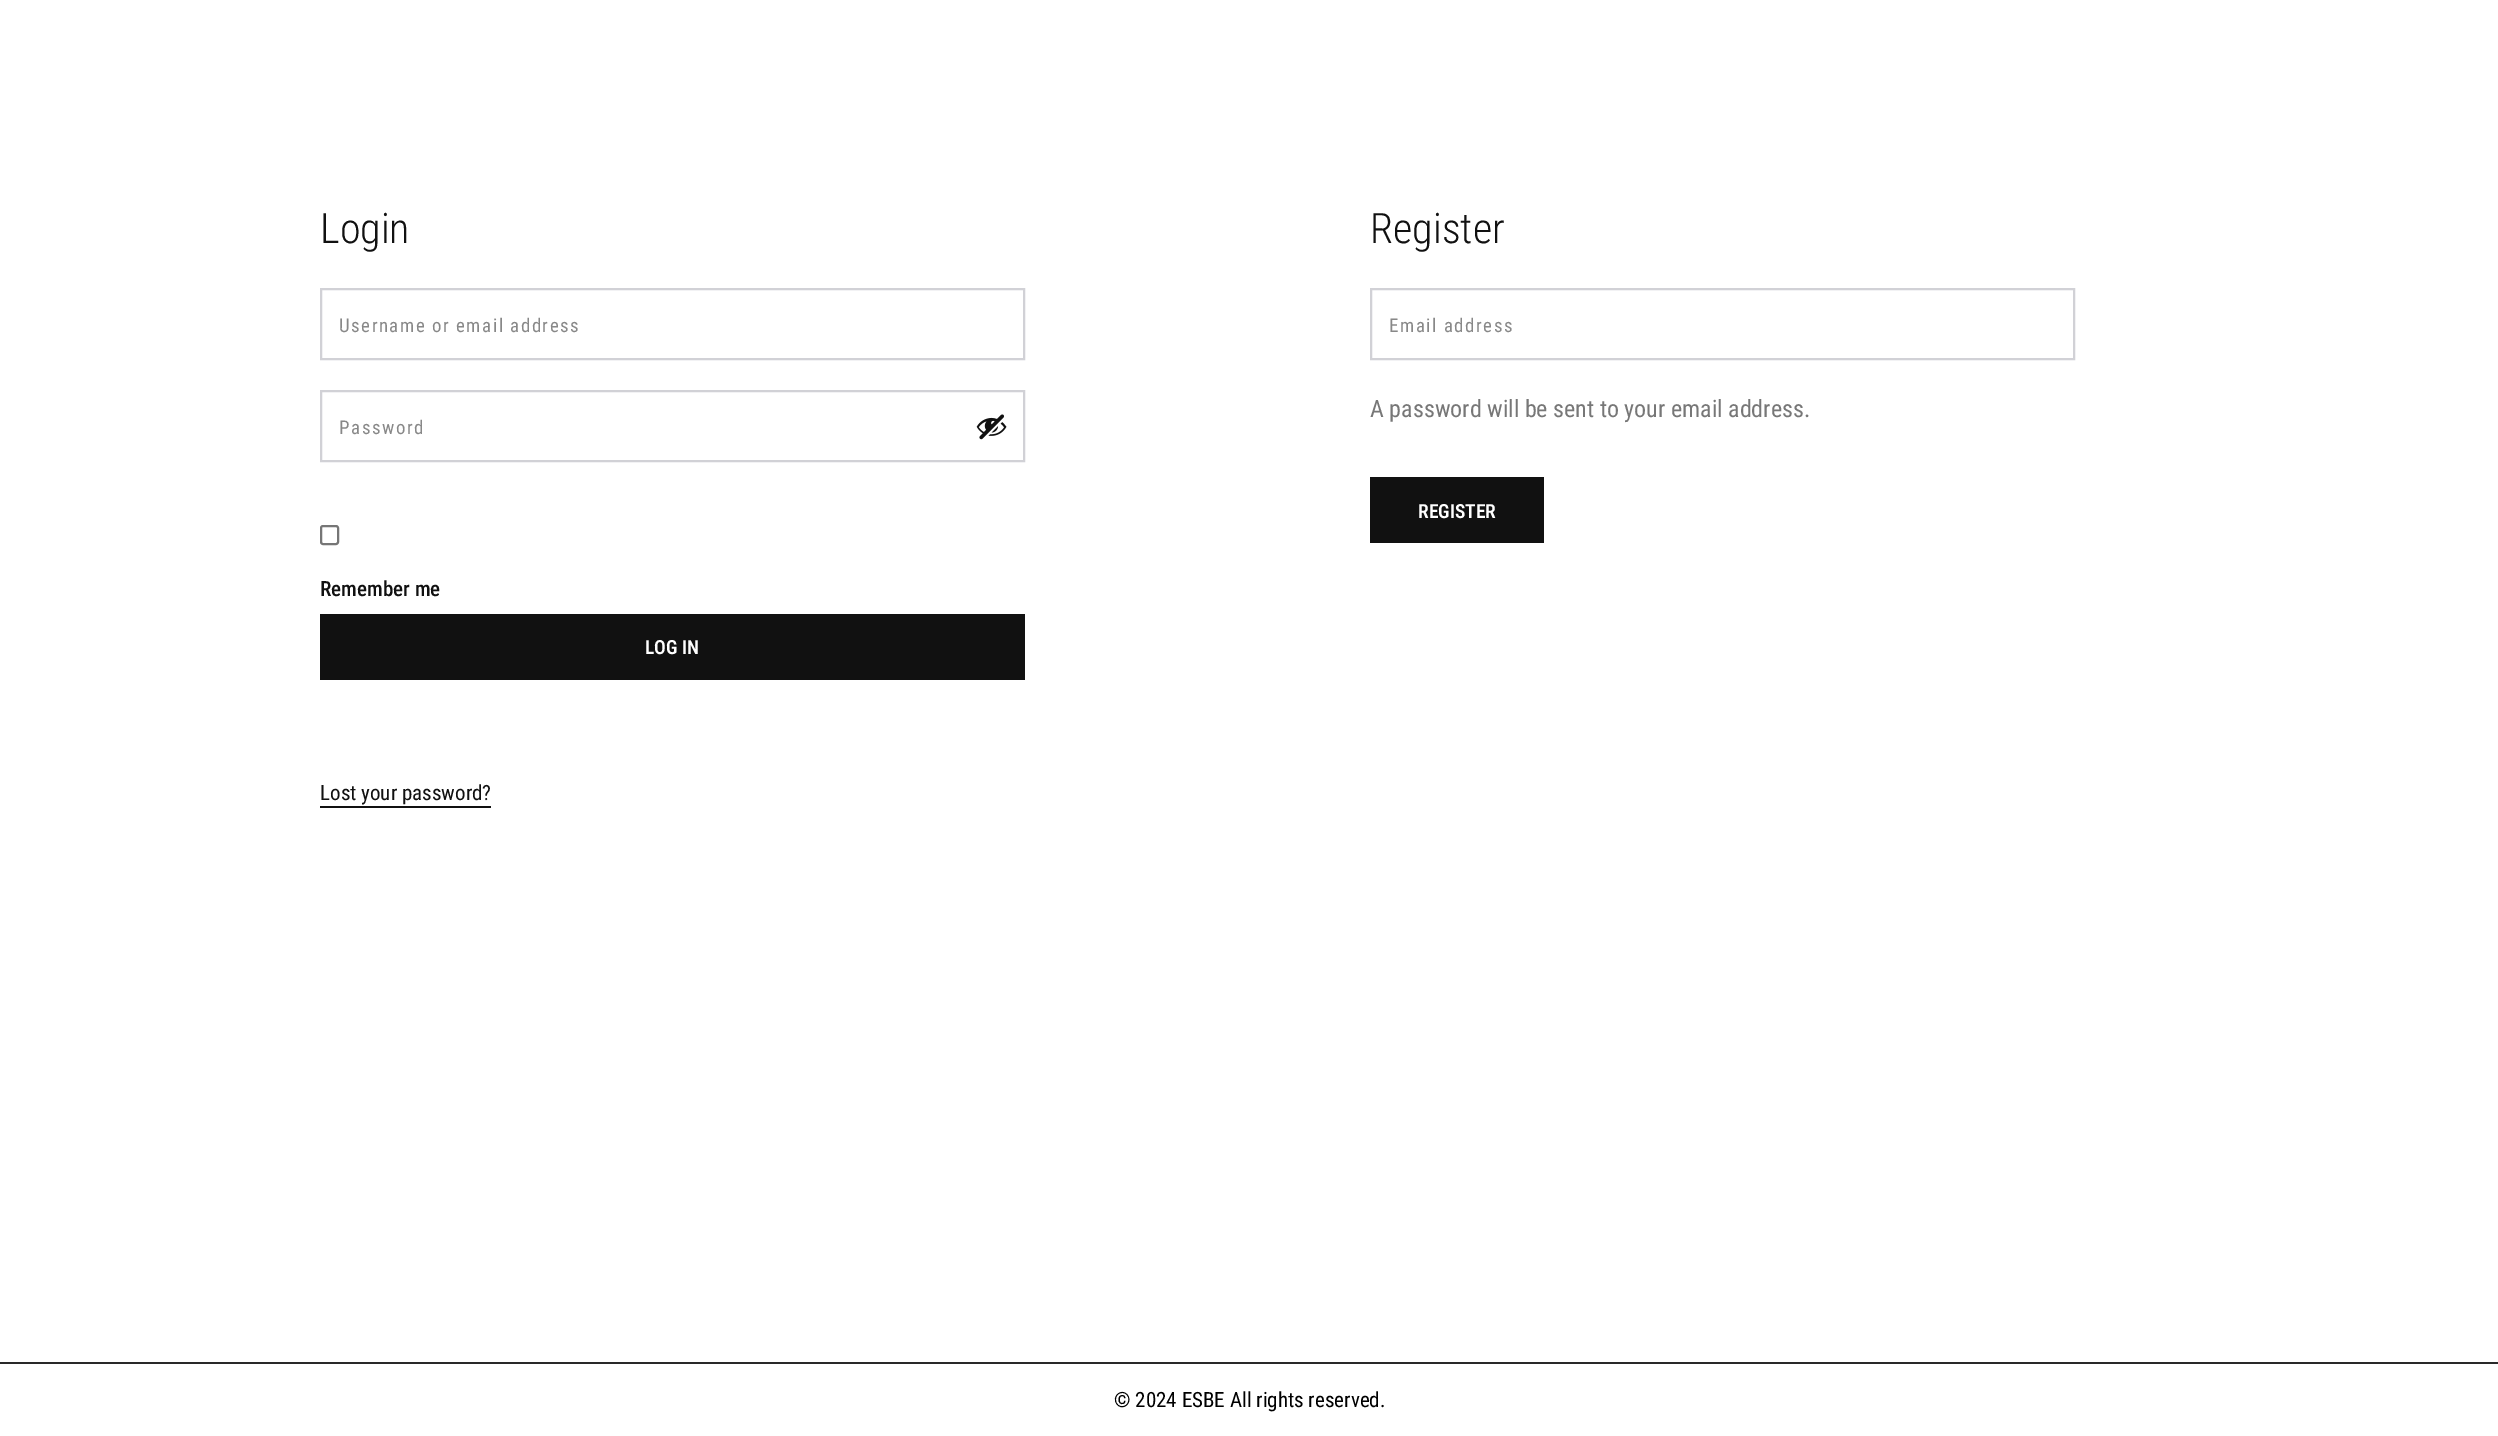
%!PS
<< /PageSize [2498 1436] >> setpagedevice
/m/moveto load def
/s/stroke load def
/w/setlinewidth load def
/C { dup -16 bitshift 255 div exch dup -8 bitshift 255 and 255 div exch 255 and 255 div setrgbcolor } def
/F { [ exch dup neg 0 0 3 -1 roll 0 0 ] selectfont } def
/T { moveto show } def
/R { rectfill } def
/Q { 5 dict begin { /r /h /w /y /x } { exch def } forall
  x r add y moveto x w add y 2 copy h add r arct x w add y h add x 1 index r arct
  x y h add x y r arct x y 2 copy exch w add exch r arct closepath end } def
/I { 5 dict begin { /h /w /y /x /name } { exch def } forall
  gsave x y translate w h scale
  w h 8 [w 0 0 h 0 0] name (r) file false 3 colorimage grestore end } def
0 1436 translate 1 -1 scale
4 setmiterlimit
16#FFFFFF C
0 0 2498 1436 R
/RobotoCondensed-Light 42 F
16#111111 C
(Login) 320 243 T
16#D1D1D6 C
2 w
321 289 703 70 rectstroke
/RobotoCondensed-Regular 18.9 F
16#888888 C
339 332 m 1.5 0 (Username or email address) ashow
16#D1D1D6 C
321 391 703 70 rectstroke
16#888888 C
339 434 m 1.5 0 (Password) ashow
(1.rgb) 976 414 31 26 I
16#767676 C
321 526 17 18 2 Q s
/RobotoCondensed-Medium 21 F
16#111111 C
(Remember me) 320 596 T
320 614 705 66 R
/RobotoCondensed-SemiBold 19.5 F
16#FFFFFF C
(LOG IN) 645 654 T
/RobotoCondensed-Regular 21 F
16#111111 C
(Lost your password?) 320 800 T
320 806 171 2 R
/RobotoCondensed-Light 42 F
(Register) 1370 243 T
16#D1D1D6 C
1371 289 703 70 rectstroke
/RobotoCondensed-Regular 18.9 F
16#888888 C
1389 332 m 1.5 0 (Email address) ashow
/RobotoCondensed-Regular 24 F
16#777777 C
(A password will be sent to your email address.) 1370 417 T
16#111111 C
1370 477 174 66 R
/RobotoCondensed-SemiBold 19.5 F
16#FFFFFF C
(REGISTER) 1418 518 T
16#292929 C
0 1362 2498 2 R
/RobotoCondensed-Regular 21 F
16#000000 C
(© 2024 ESBE All rights reserved.) 1114 1407 T
showpage
